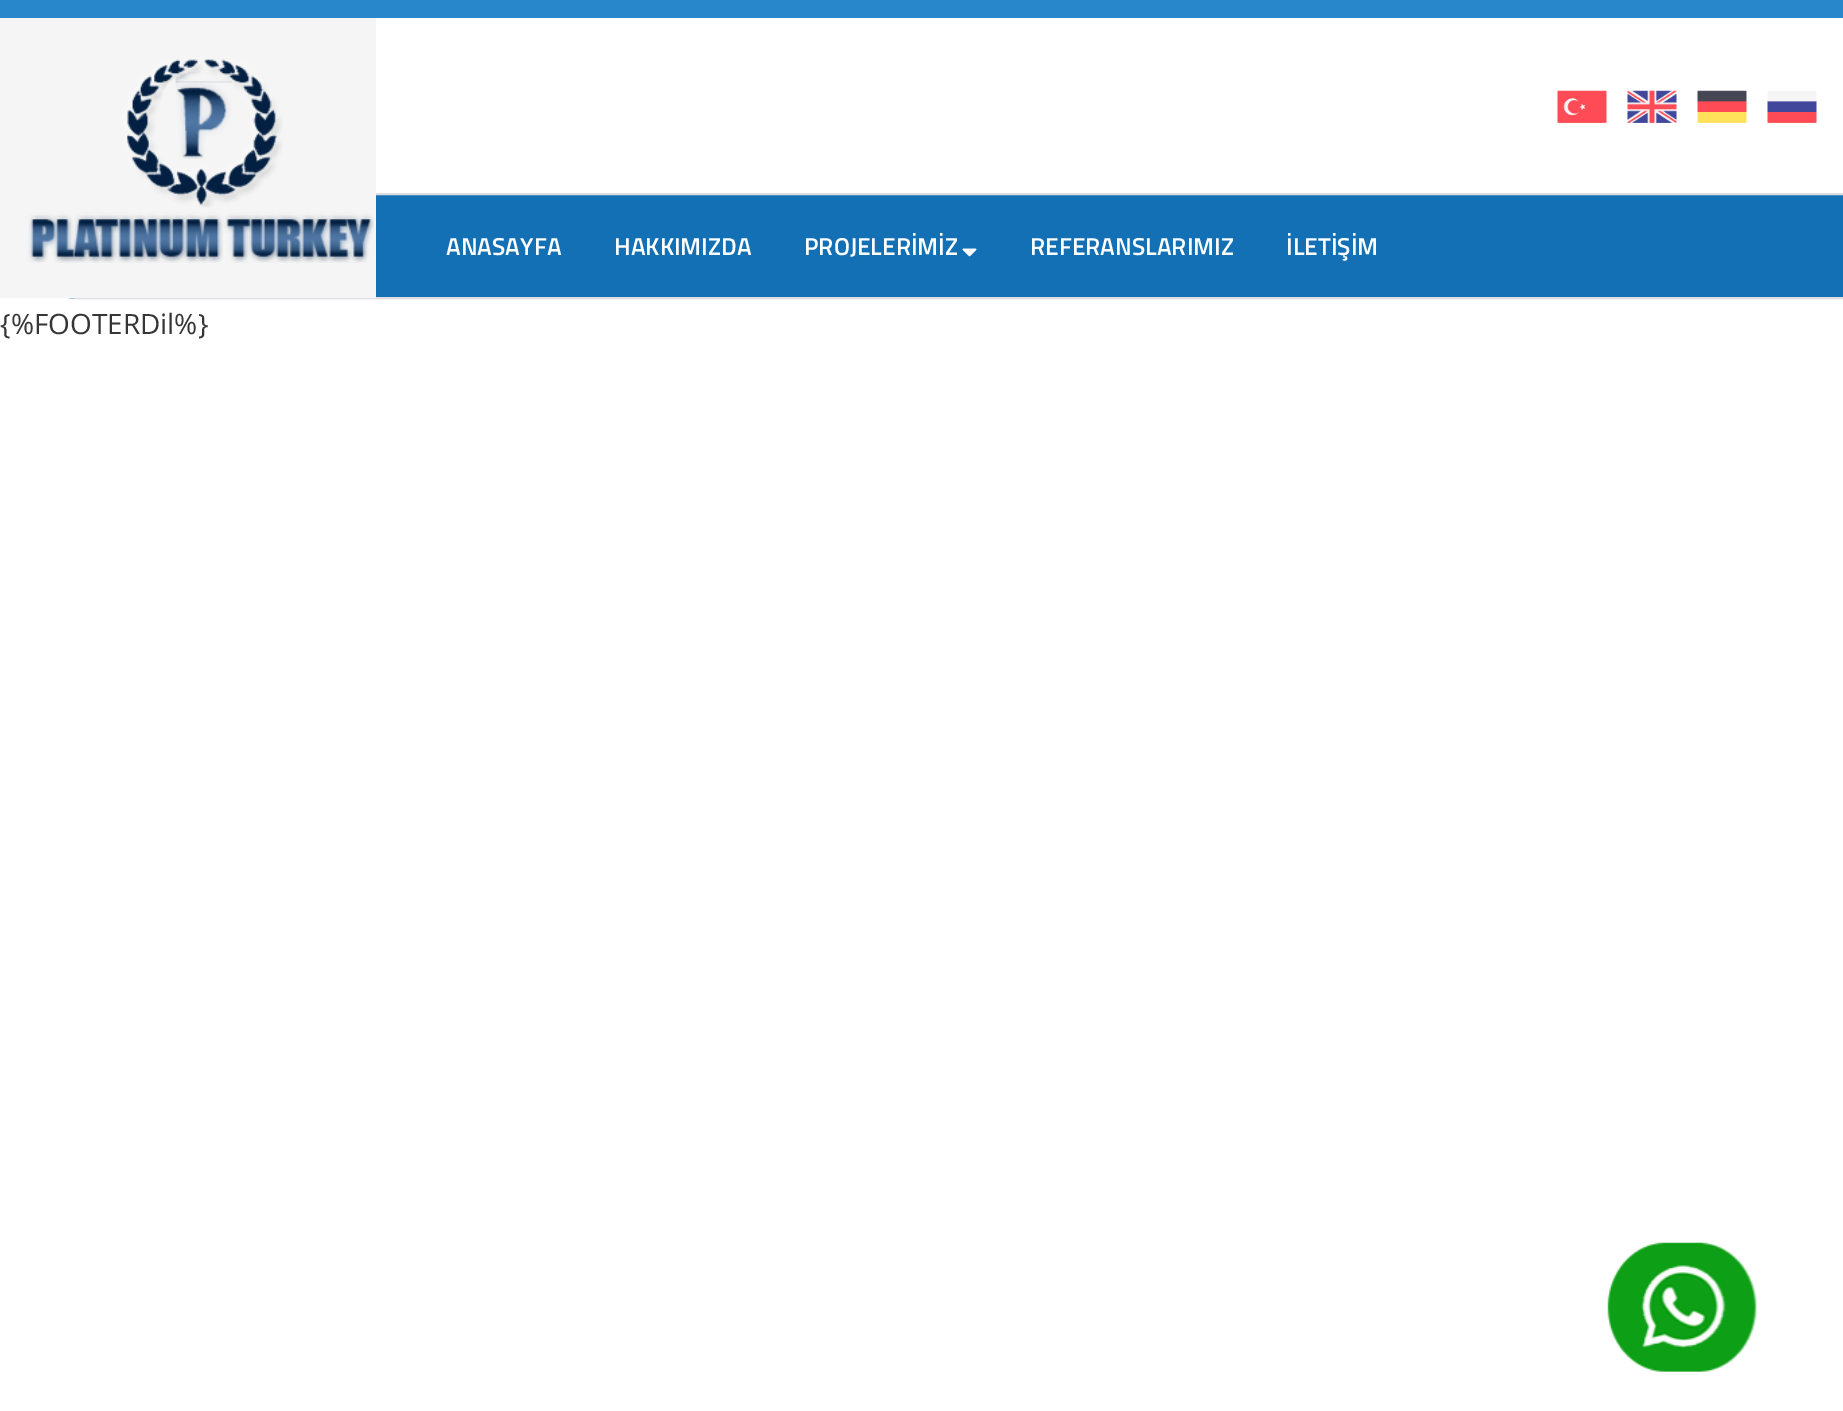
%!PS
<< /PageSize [1843 1411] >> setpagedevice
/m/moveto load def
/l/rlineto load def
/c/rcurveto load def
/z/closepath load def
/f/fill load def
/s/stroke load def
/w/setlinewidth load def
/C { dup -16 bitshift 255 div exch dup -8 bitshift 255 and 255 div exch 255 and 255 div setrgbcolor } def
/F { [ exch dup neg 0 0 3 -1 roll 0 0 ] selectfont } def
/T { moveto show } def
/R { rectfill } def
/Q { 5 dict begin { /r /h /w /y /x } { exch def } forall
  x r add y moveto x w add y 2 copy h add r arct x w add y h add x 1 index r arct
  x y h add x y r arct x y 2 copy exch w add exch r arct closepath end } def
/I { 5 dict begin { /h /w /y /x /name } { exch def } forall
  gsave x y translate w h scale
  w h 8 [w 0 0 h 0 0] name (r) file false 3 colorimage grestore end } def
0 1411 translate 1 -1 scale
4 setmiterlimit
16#FFFFFF C
0 0 1843 1411 R
16#2886CB C
0 0 1843 18 R
(1.rgb) 1557 90 50 33 I
(2.rgb) 1627 90 50 33 I
(3.rgb) 1697 90 50 33 I
(4.rgb) 1767 91 50 32 I
16#1370B5 C
79 193 m 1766 0 l 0 106 l -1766 0 l -29.5 0 -53 -23.5 -53 -53 c 0 -29.5 23.5 -53 53 -53 c z f
16#DDDDE1 C
2 w
27 194 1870 104 52 Q s
16#F5F5F5 C
0 18 376 280 R
(5.rgb) 28 59 346 204 I
/TitilliumWeb-SemiBold 24.5 F
16#FFFFFF C
(ANASAYFA) 446 255 T
(HAKKIMIZDA) 614 255 T
(PROJELERİMİZ) 804 255 T
(6.rgb) 962 248 15 9 I
(REFERANSLARIMIZ) 1030 255 T
(İLETİŞİM) 1286 255 T
/OpenSans-Regular 28 F
16#363636 C
({%FOOTERDil%}) 0 334 T
(7.rgb) 1607 1242 150 130 I
showpage
